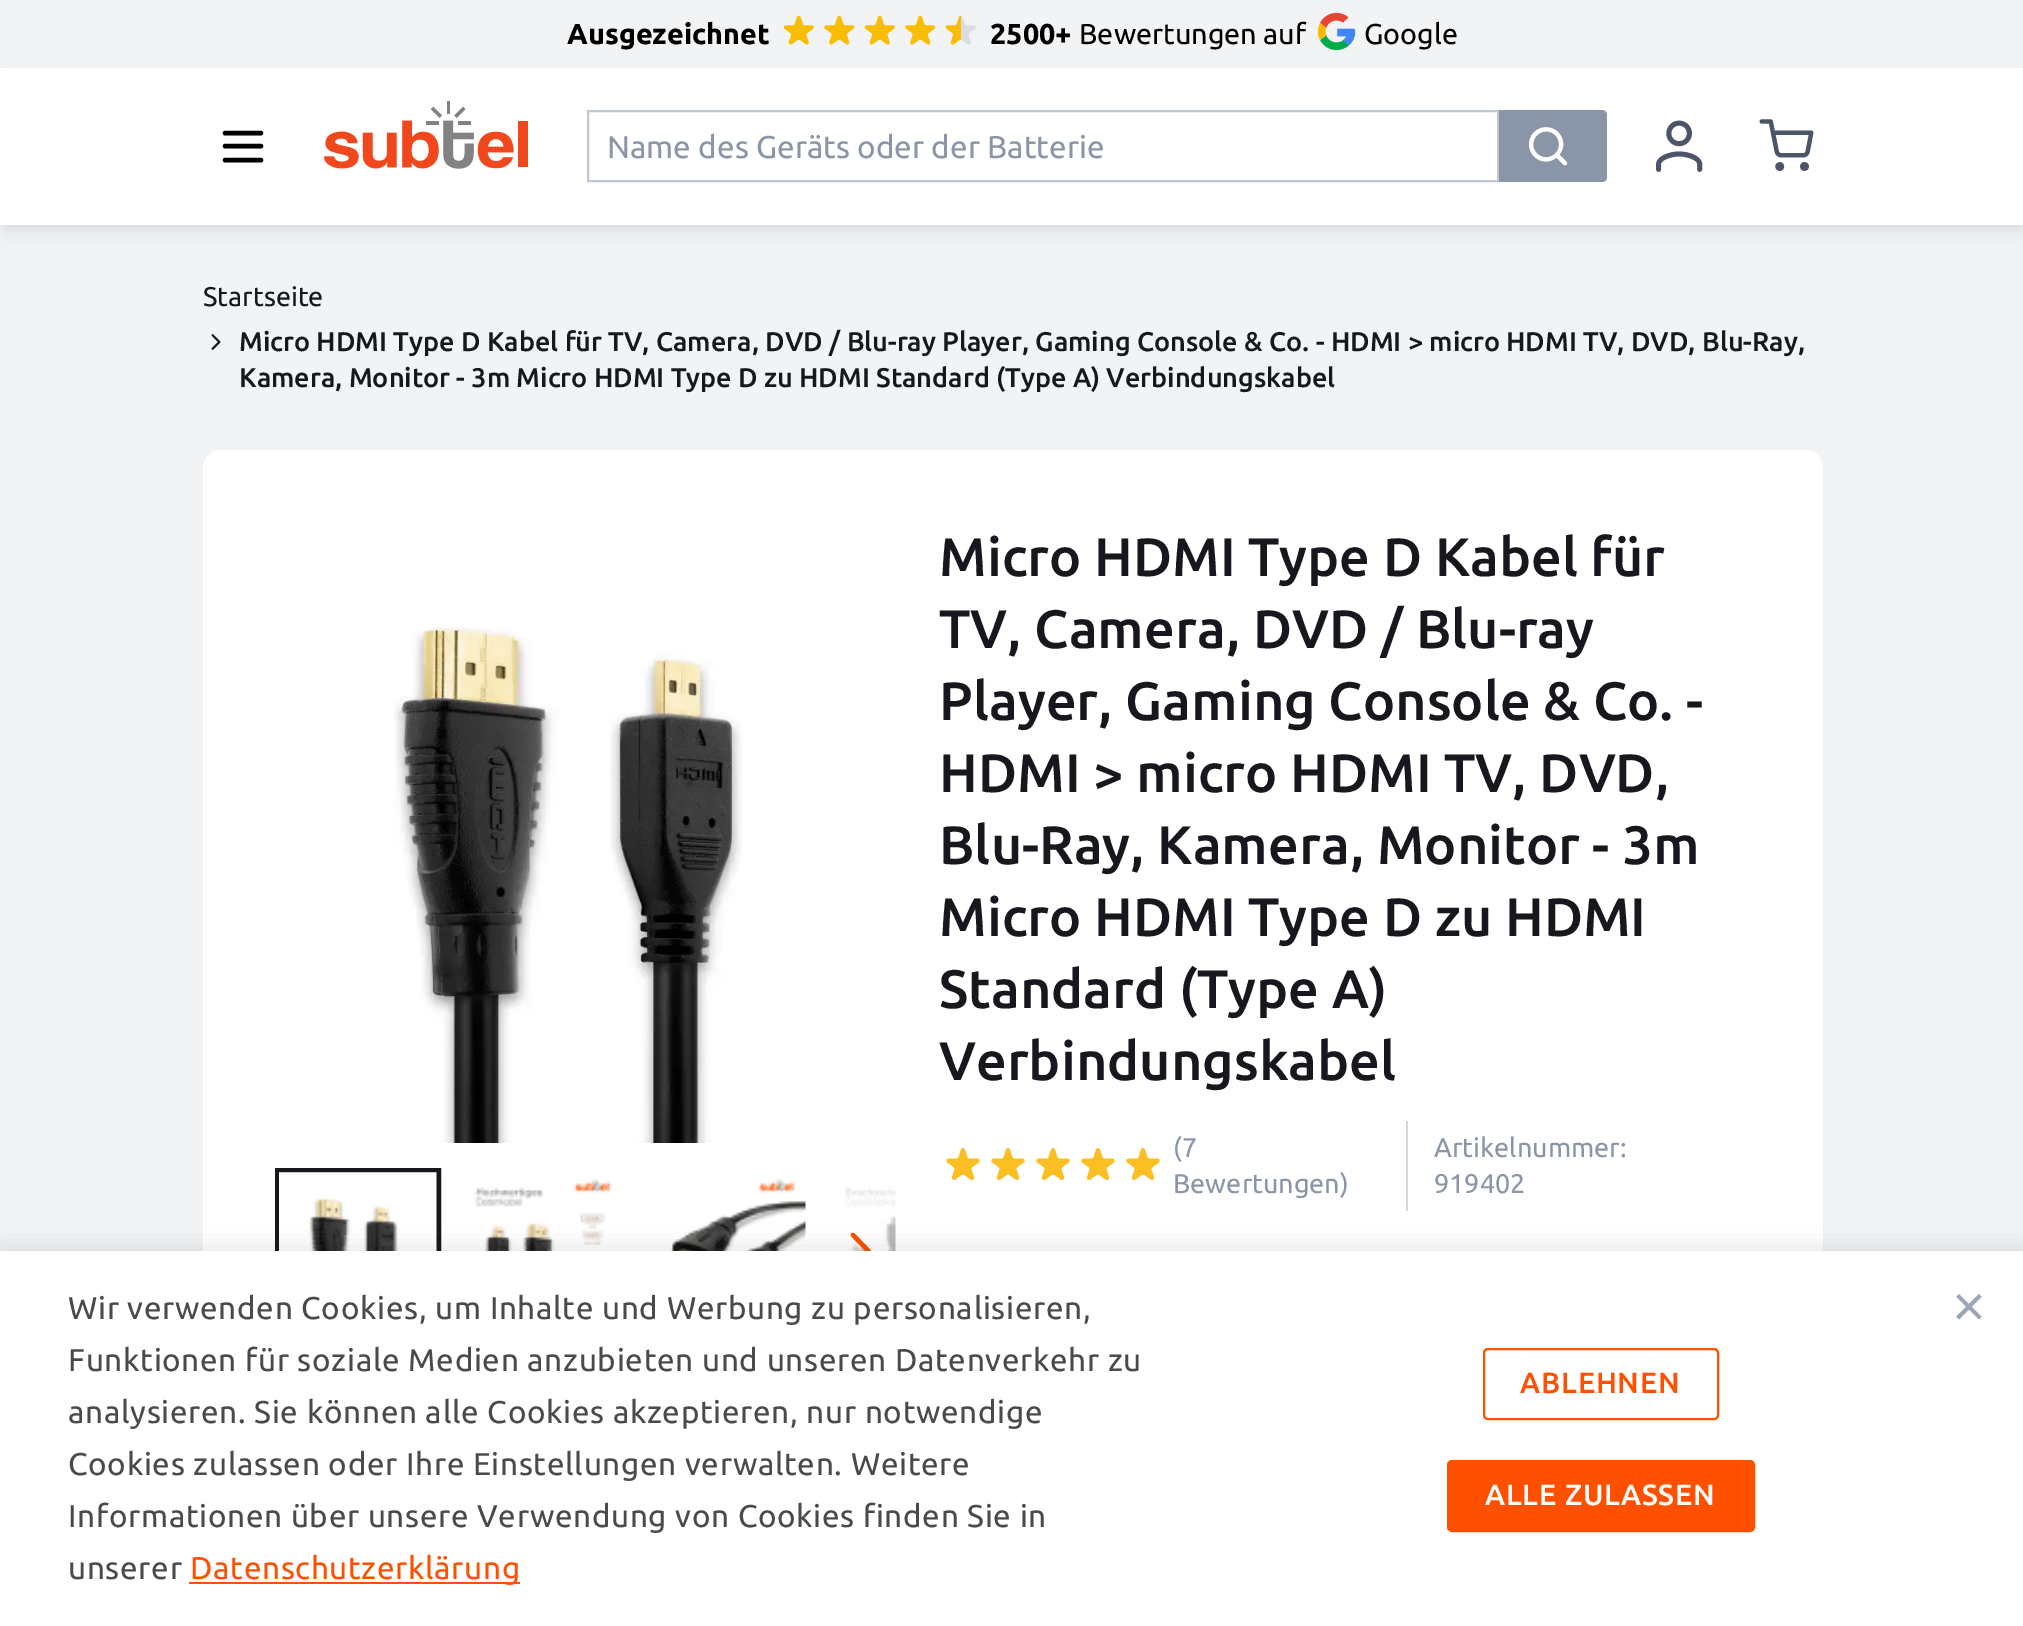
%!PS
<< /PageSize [2023 1626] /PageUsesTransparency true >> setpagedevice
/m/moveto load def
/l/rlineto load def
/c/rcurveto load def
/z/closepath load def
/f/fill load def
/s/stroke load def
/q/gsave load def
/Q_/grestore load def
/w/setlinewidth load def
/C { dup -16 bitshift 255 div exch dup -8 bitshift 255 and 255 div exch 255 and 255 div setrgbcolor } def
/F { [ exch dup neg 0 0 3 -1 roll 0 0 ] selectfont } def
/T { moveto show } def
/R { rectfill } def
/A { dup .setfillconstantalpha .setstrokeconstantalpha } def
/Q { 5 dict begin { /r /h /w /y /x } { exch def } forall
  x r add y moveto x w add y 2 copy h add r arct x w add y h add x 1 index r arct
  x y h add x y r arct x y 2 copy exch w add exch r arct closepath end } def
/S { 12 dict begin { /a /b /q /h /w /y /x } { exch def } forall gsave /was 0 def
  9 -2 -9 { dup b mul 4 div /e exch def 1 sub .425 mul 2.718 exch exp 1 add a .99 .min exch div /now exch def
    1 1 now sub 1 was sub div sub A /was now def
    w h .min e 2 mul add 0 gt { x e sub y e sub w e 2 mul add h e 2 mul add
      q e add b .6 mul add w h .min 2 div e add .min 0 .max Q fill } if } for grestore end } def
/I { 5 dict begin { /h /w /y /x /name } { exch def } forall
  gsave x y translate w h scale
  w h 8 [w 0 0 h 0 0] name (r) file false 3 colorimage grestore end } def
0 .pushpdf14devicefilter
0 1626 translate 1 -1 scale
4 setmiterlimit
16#F1F3F5 C
0 0 2023 1626 R
/Ubuntu-Bold 28.75 F
16#000000 C
(Ausgezeichnet) 567 44 T
(1.rgb) 783 15 31 30 I
(2.rgb) 824 15 31 30 I
(1.rgb) 864 15 31 30 I
(2.rgb) 905 15 31 30 I
(3.rgb) 945 15 31 30 I
(2500+) 990 44 T
/Ubuntu-Regular 28.75 F
(Bewertungen auf) 1079 44 T
(4.rgb) 1317 12 39 39 I
(Google) 1364 44 T
16#101828 C
5 81 2016 149 0 9 .1 S
5 77 2016 148 0 4.5 .06 S
16#FFFFFF C
0 68 2023 157 R
16#000000 C
4.5 w
1 setlinecap
1 setlinejoin
225 133 m 36 0 l 225 146 m 36 0 l 225 160 m 36 0 l s
(5.rgb) 324 101 204 68 I
16#C1C8D2 C
2 w
0 setlinecap
0 setlinejoin
588 111 910 70 rectstroke
/Ubuntu-Regular 31.5 F
16#8A96A8 C
(Name des Geräts oder der Batterie) 607 158 T
1499 110 m 103 0 l 3 0 5 2 5 5 c 0 62 l 0 3 -2 5 -5 5 c -103 0 l z f
(6.rgb) 1528 127 40 39 I
(7.rgb) 1656 120 47 52 I
(8.rgb) 1759 119 55 52 I
/Ubuntu-Regular 27 F
16#16181D C
(Startseite) 203 306 T
(9.rgb) 211 334 10 16 I
/Ubuntu-Medium 27 F
(Micro HDMI Type D Kabel für TV, Camera, DVD / Blu-ray Player, Gaming Console & Co. - HDMI > micro HDMI TV, DVD, Blu-Ray,) 239 351 T
(Kamera, Monitor - 3m Micro HDMI Type D zu HDMI Standard \(Type A\) Verbindungskabel) 239 387 T
16#FFFFFF C
203 450 1620 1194 18 Q f
(10.rgb) 393 627 349 516 I
16#16181D C
5 w
277.5 1170.5 161 161 rectstroke
(11.rgb) 279 1172 158 79 I
(12.rgb) 474 1178 137 73 I
(13.rgb) 658 1178 148 73 I
(14.rgb) 843 1187 53 64 I
16#FF5000 C
4.5 w
1 setlinecap
1 setlinejoin
853 1235 m 15.5 16 l -15.5 16 l s
/Ubuntu-Medium 54 F
16#16181D C
(Micro HDMI Type D Kabel für) 939 576 T
(TV, Camera, DVD / Blu-ray) 939 648 T
(Player, Gaming Console & Co. -) 939 720 T
(HDMI > micro HDMI TV, DVD,) 939 792 T
(Blu-Ray, Kamera, Monitor - 3m) 939 864 T
(Micro HDMI Type D zu HDMI) 939 936 T
(Standard \(Type A\)) 939 1008 T
(Verbindungskabel) 939 1080 T
(15.rgb) 946 1148 34 32 I
(15.rgb) 991 1148 34 32 I
(15.rgb) 1036 1148 34 32 I
(15.rgb) 1081 1148 34 32 I
(15.rgb) 1126 1148 34 32 I
/Ubuntu-Regular 27 F
16#8A96A8 C
(\(7) 1173 1157 T
(Bewertungen\)) 1173 1193 T
16#D3D7DF C
1406 1121 2 90 R
16#8A96A8 C
(Artikelnummer:) 1434 1157 T
(919402) 1434 1193 T
16#000000 C
0 1247 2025 375 0 11 .1 S
16#FFFFFF C
0 1251 2023 375 R
/Ubuntu-Regular 31.5 F
16#4A4A4A C
68 1319 m .67 0 (Wir verwenden Cookies, um Inhalte und Werbung zu personalisieren,) ashow
68 1371 m .67 0 (Funktionen für soziale Medien anzubieten und unseren Datenverkehr zu) ashow
68 1423 m .67 0 (analysieren. Sie können alle Cookies akzeptieren, nur notwendige) ashow
68 1475 m .67 0 (Cookies zulassen oder Ihre Einstellungen verwalten. Weitere) ashow
68 1527 m .67 0 (Informationen über unsere Verwendung von Cookies finden Sie in) ashow
68 1579 m .67 0 (unserer) ashow
16#FF5000 C
189 1582 331 2 R
190 1579 m .67 0 (Datenschutzerklärung) ashow
2 w
0 setlinecap
0 setlinejoin
1484 1349 234 70 4 Q s
/Ubuntu-Medium 29.25 F
1520 1393 m .9 0 (ABLEHNEN) ashow
1448 1461 306 70 4 Q q f Q_
s
16#FFFFFF C
1485 1505 m .9 0 (ALLE ZULASSEN) ashow
/LiberationSans-Regular 58 F
16#9CA6B5 C
(×) 1952 1326 T
.poppdf14devicefilter showpage
